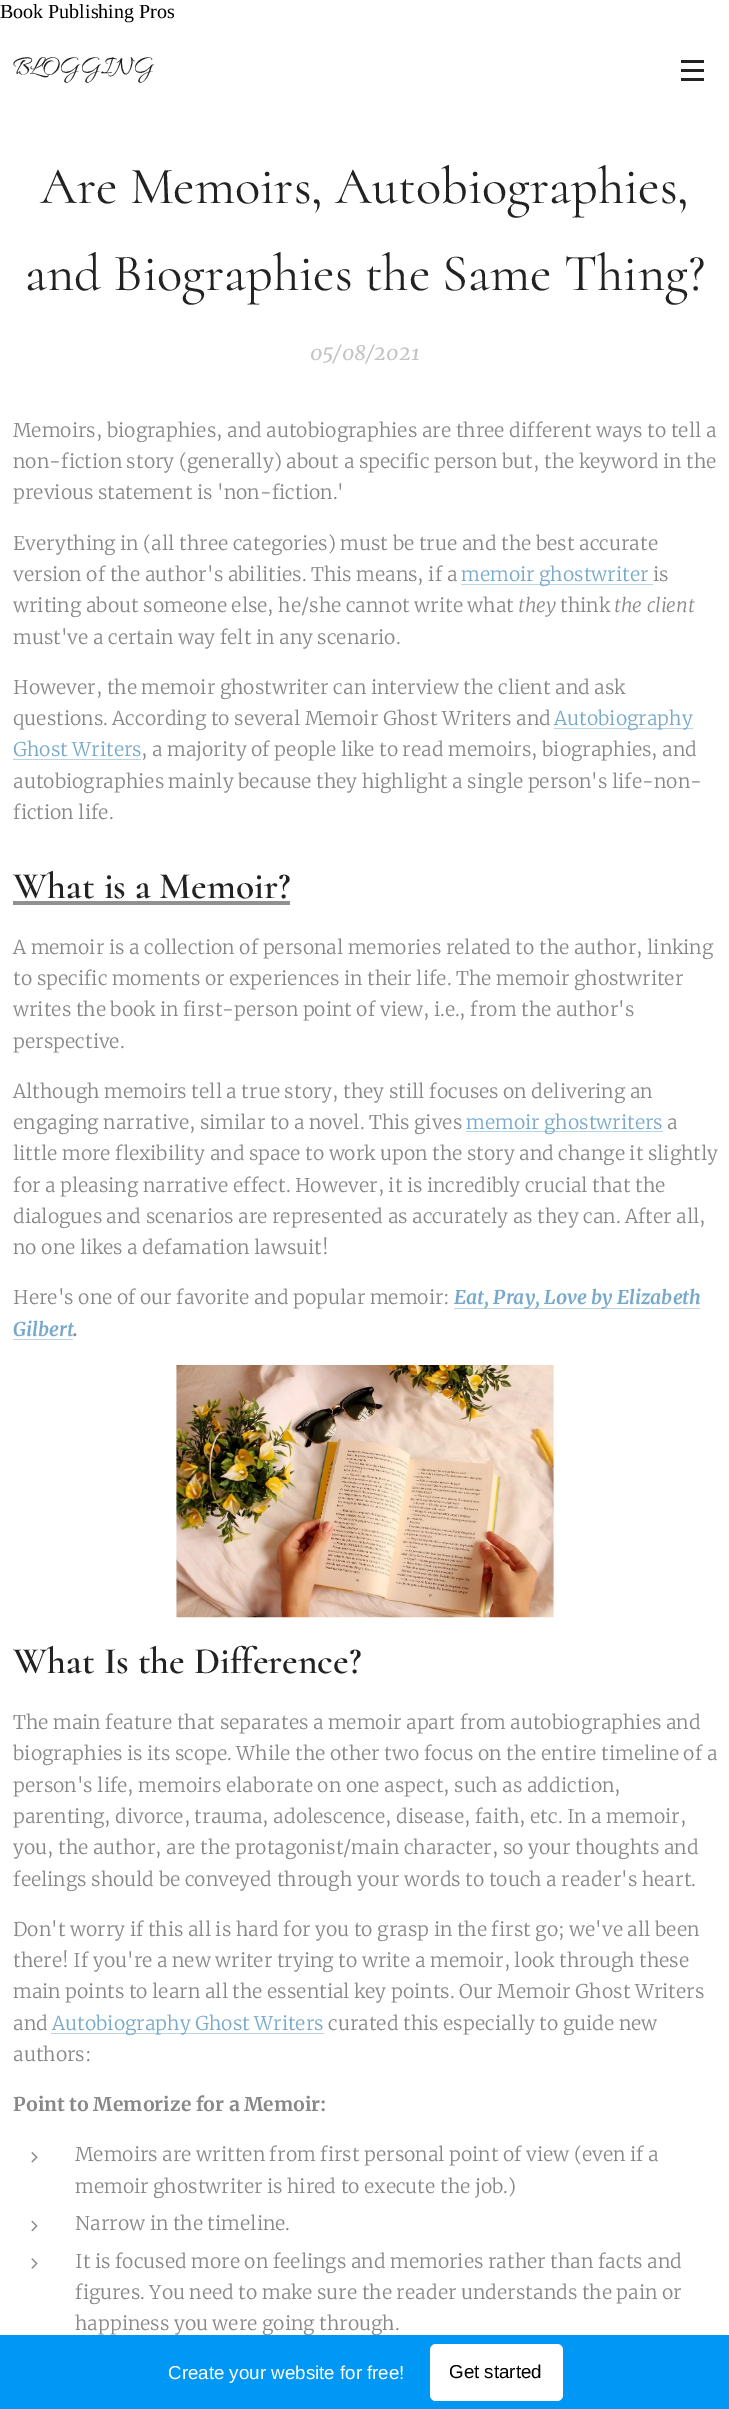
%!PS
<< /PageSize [729 2409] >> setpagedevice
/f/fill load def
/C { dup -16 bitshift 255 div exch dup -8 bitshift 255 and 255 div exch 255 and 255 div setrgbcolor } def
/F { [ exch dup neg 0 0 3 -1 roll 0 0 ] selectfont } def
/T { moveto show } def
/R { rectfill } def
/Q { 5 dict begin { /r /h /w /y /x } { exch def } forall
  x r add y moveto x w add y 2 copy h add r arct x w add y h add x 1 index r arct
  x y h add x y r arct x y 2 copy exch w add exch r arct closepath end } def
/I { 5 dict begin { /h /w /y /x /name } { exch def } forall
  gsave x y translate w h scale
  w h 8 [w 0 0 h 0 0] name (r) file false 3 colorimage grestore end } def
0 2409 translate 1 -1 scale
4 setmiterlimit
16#FFFFFF C
0 0 729 2409 R
/LiberationSerif-Regular 20 F
16#000000 C
(Book Publishing Pros) 0 18 T
/Allura-Regular 26.25 F
16#222222 C
(BLOGGING) 13 73 T
681 69 23 3 R
681 60 23 3 R
681 78 23 3 R
/Cormorant-Regular 52.5 F
(Are Memoirs, Autobiographies,) 40 203 T
(and Biographies the Same Thing?) 25 290 T
/Merriweather-Italic 20 F
16#C3C3C3 C
(05/08/2021) 310 360 T
/Merriweather-Light 19 F
16#888888 C
(Memoirs, biographies, and autobiographies are three different ways to tell a) 13 437 T
(non-fiction story \(generally\) about a specific person but, the keyword in the) 13 468 T
(previous statement is 'non-fiction.') 13 499 T
(Everything in \(all three categories\) must be true and the best accurate) 13 550 T
(version of the author's abilities. This means, if a) 13 581 T
16#BBD4E5 C
461 584 192 1 R
16#77A9CA C
(memoir ghostwriter) 461 581 T
16#888888 C
(is) 653 581 T
(writing about someone else, he/she cannot write what) 13 612 T
/Merriweather-LightItalic 19 F
(they) 518 612 T
/Merriweather-Light 19 F
(think) 560 612 T
/Merriweather-LightItalic 19 F
(the client) 614 612 T
/Merriweather-Light 19 F
(must've a certain way felt in any scenario.) 13 644 T
(However, the memoir ghostwriter can interview the client and ask) 13 694 T
(questions. According to several Memoir Ghost Writers and) 13 725 T
16#BBD4E5 C
554 728 139 1 R
16#77A9CA C
(Autobiography) 554 725 T
(Ghost Writers) 13 756 T
16#BBD4E5 C
13 759 128 1 R
16#888888 C
(, a majority of people like to read memoirs, biographies, and) 141 756 T
(autobiographies mainly because they highlight a single person's life-non-) 13 788 T
(fiction life.) 13 819 T
/Cormorant-SemiBold 37.5 F
16#222222 C
(What is a Memoir?) 13 898 T
16#919191 C
13 901 277 4 R
/Merriweather-Light 19 F
16#888888 C
(A memoir is a collection of personal memories related to the author, linking) 13 954 T
(to specific moments or experiences in their life. The memoir ghostwriter) 13 985 T
(writes the book in first-person point of view, i.e., from the author's) 13 1016 T
(perspective.) 13 1048 T
(Although memoirs tell a true story, they still focuses on delivering an) 13 1098 T
(engaging narrative, similar to a novel. This gives) 13 1129 T
16#BBD4E5 C
466 1131 197 1 R
16#77A9CA C
(memoir ghostwriters) 466 1129 T
16#888888 C
(a) 667 1129 T
(little more flexibility and space to work upon the story and change it slightly) 13 1160 T
(for a pleasing narrative effect. However, it is incredibly crucial that the) 13 1192 T
(dialogues and scenarios are represented as accurately as they can. After all,) 13 1223 T
(no one likes a defamation lawsuit!) 13 1254 T
(Here's one of our favorite and popular memoir:) 13 1304 T
16#BBD4E5 C
454 1308 246 1 R
/Merriweather-BoldItalic 19 F
16#77A9CA C
(Eat, Pray, Love by Elizabeth) 454 1304 T
(Gilbert) 13 1336 T
16#888888 C
(.) 73 1336 T
16#BBD4E5 C
13 1339 60 1 R
(1.rgb) 176 1365 378 253 I
/Cormorant-SemiBold 37.5 F
16#222222 C
(What Is the Difference?) 13 1673 T
/Merriweather-Light 19 F
16#888888 C
(The main feature that separates a memoir apart from autobiographies and) 13 1729 T
(biographies is its scope. While the other two focus on the entire timeline of a) 13 1760 T
(person's life, memoirs elaborate on one aspect, such as addiction,) 13 1792 T
(parenting, divorce, trauma, adolescence, disease, faith, etc. In a memoir,) 13 1823 T
(you, the author, are the protagonist/main character, so your thoughts and) 13 1854 T
(feelings should be conveyed through your words to touch a reader's heart.) 13 1886 T
(Don't worry if this all is hard for you to grasp in the first go; we've all been) 13 1936 T
(there! If you're a new writer trying to write a memoir, look through these) 13 1967 T
(main points to learn all the essential key points. Our Memoir Ghost Writers) 13 1998 T
(and) 13 2030 T
16#BBD4E5 C
51 2033 273 1 R
16#77A9CA C
(Autobiography Ghost Writers) 52 2030 T
16#888888 C
(curated this especially to guide new) 328 2030 T
(authors:) 13 2061 T
/Merriweather-Bold 19 F
(Point to Memorize for a Memoir:) 13 2111 T
(2.rgb) 31 2152 7 11 I
/Merriweather-Light 19 F
(Memoirs are written from first personal point of view \(even if a) 75 2161 T
(memoir ghostwriter is hired to execute the job.\)) 75 2193 T
(3.rgb) 31 2220 7 12 I
(Narrow in the timeline.) 75 2230 T
(4.rgb) 31 2258 7 11 I
(It is focused more on feelings and memories rather than facts and) 75 2268 T
(figures. You need to make sure the reader understands the pain or) 75 2299 T
(happiness you were going through.) 75 2330 T
16#0097F5 C
0 2335 729 74 R
/LiberationSans-Regular 18.75 F
16#FFFFFF C
(Create your website for free!) 168 2379 T
430 2344 133 57 6 Q f
16#000000 C
(Get started) 449 2378 T
showpage
